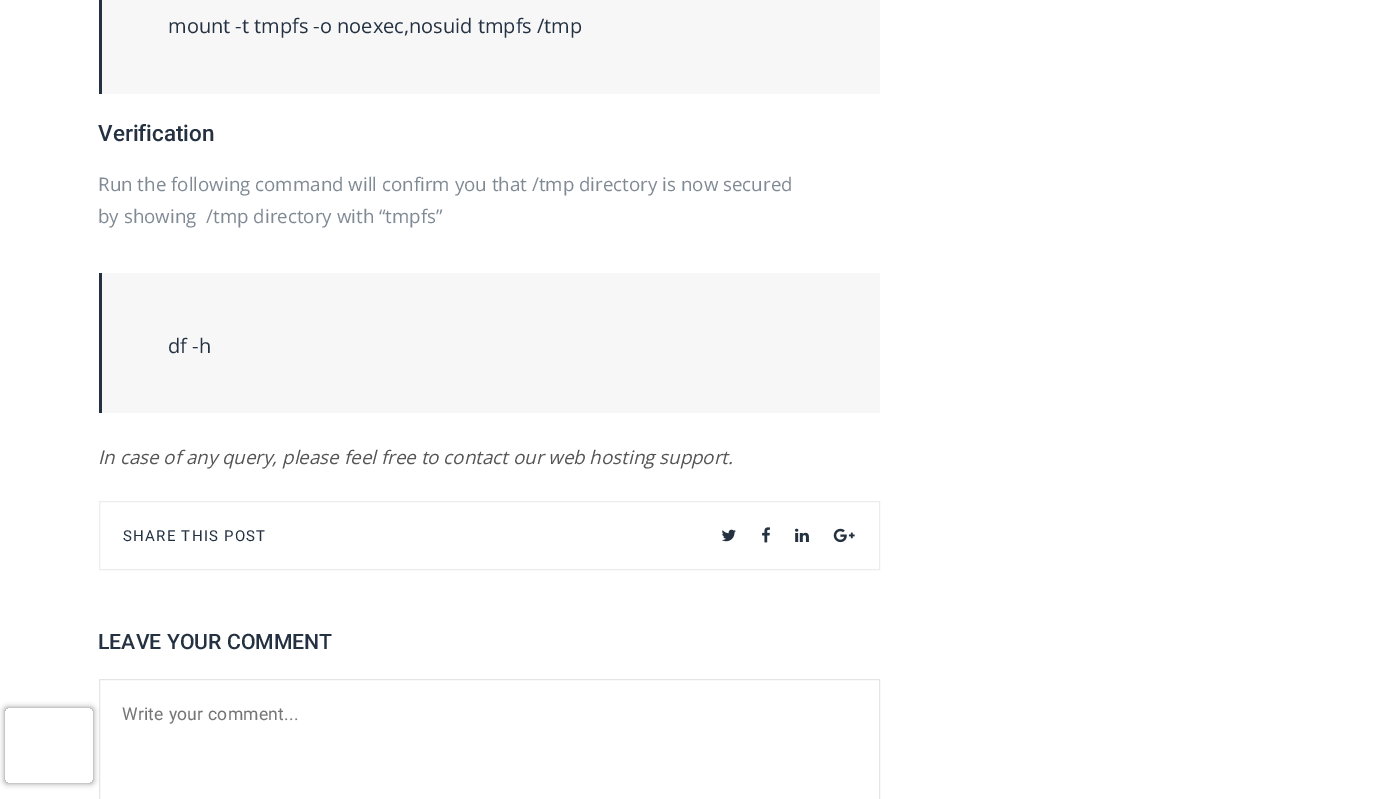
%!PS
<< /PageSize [1383 799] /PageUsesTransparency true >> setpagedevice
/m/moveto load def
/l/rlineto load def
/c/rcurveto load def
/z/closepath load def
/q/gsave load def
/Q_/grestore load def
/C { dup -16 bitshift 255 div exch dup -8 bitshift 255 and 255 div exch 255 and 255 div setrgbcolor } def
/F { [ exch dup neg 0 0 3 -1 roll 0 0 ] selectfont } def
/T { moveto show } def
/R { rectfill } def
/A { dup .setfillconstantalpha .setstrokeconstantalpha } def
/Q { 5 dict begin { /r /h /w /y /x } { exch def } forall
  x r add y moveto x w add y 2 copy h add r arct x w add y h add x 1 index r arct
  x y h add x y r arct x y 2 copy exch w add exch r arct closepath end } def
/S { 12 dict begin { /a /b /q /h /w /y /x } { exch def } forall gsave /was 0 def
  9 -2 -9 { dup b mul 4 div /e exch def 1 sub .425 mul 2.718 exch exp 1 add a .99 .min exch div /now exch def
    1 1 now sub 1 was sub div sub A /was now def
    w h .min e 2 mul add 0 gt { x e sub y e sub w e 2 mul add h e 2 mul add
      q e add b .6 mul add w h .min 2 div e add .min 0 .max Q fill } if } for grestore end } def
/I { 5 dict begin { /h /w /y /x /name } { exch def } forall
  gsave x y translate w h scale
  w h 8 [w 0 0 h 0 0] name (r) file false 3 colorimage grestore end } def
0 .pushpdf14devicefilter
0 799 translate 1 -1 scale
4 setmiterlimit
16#FFFFFF C
0 0 1383 799 R
16#F7F7F7 C
102 0 778 94 R
16#243141 C
99 0 3 94 R
/OpenSans-Regular 20 F
(mount -t tmpfs -o noexec,nosuid tmpfs /tmp) 168 33 T
/Roboto-Medium 22.5 F
(Verification) 98 141 T
/OpenSans-Regular 18.75 F
16#808A95 C
(Run the following command will confirm you that /tmp directory is now secured) 98 191 T
(by showing  /tmp directory with “tmpfs”) 98 223 T
16#F7F7F7 C
102 273 778 140 R
16#243141 C
99 273 3 140 R
/OpenSans-Regular 20 F
(df -h) 168 353 T
/OpenSans-Italic 18.75 F
16#555555 C
(In case of any query, please feel free to contact our web hosting support.) 98 464 T
16#ECECEC C
99.5 501.5 780 68 rectstroke
/Roboto-Regular 15 F
16#243141 C
123 541 m 1.25 0 (SHARE THIS POST) ashow
(1.rgb) 722 529 14 13 I
(2.rgb) 762 527 8 16 I
(3.rgb) 795 528 14 14 I
(4.rgb) 833 528 22 15 I
/Roboto-Medium 21.25 F
(LEAVE YOUR COMMENT) 98 649 T
16#E5E5E5 C
99.5 679.5 780 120 rectstroke
/Roboto-Regular 17.5 F
16#757575 C
122 720 m .25 0 (Write your comment...) ashow
q
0 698 m 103 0 l 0 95 l -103 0 l z 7.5 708 m 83 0 l 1.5 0 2.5 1 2.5 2.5 c 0 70 l 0 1.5 -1 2.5 -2.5 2.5 c -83 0 l -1.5 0 -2.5 -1 -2.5 -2.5 c 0 -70 l 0 -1.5 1 -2.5 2.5 -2.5 c z eoclip newpath
16#808080 C
5 708 88 75 2.5 3 1 S
Q_
.poppdf14devicefilter showpage
